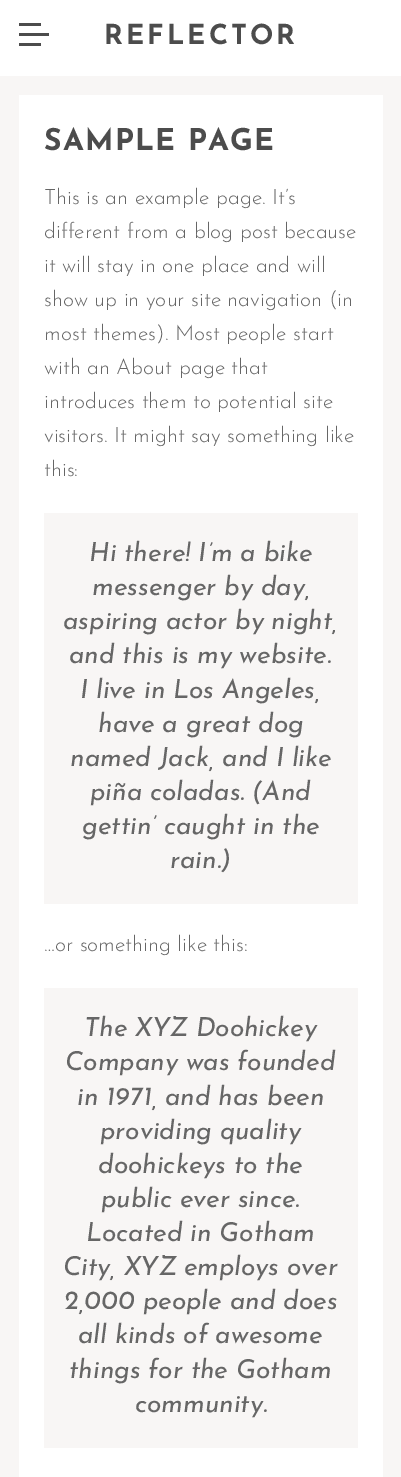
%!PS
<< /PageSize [401 1477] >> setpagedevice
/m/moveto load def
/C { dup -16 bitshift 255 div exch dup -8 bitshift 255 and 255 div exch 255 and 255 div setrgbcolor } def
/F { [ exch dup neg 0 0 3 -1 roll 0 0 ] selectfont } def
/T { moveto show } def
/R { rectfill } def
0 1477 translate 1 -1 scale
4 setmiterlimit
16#F8F6F5 C
0 0 401 1477 R
16#FFFFFF C
0 0 401 76 R
16#4C4C4C C
19 23 22 3 R
19 33 30 3 R
19 43 22 3 R
/JosefinSans-Bold 27.5 F
104 44 m 3 0 (REFLECTOR) ashow
16#FFFFFF C
19 95 364 1382 R
/JosefinSans-Bold 30 F
16#4C4C4C C
44 150 m 1.25 0 (SAMPLE PAGE) ashow
/JosefinSans-Light 21.25 F
16#666666 C
(This is an example page. It’s) 44 204 T
(different from a blog post because) 44 238 T
(it will stay in one place and will) 44 272 T
(show up in your site navigation \(in) 44 306 T
(most themes\). Most people start) 44 340 T
(with an About page that) 44 374 T
(introduces them to potential site) 44 408 T
(visitors. It might say something like) 44 442 T
(this:) 44 476 T
16#F8F6F5 C
44 513 314 391 R
/JosefinSans-Italic 26.25 F
16#666666 C
(Hi there! I’m a bike) 89 561 T
(messenger by day,) 92 595 T
(aspiring actor by night,) 63 629 T
(and this is my website.) 69 663 T
(I live in Los Angeles,) 80 698 T
(have a great dog) 98 732 T
(named Jack, and I like) 70 766 T
(piña coladas. \(And) 90 800 T
(gettin’ caught in the) 82 834 T
(rain.\)) 170 868 T
/JosefinSans-Light 21.25 F
(…or something like this:) 44 951 T
16#F8F6F5 C
44 988 314 460 R
/JosefinSans-Italic 26.25 F
16#666666 C
(The XYZ Doohickey) 84 1036 T
(Company was founded) 65 1070 T
(in 1971, and has been) 77 1105 T
(providing quality) 100 1139 T
(doohickeys to the) 98 1173 T
(public ever since.) 101 1207 T
(Located in Gotham) 86 1241 T
(City, XYZ employs over) 63 1275 T
(2,000 people and does) 64 1309 T
(all kinds of awesome) 78 1343 T
(things for the Gotham) 69 1378 T
(community.) 135 1412 T
showpage
